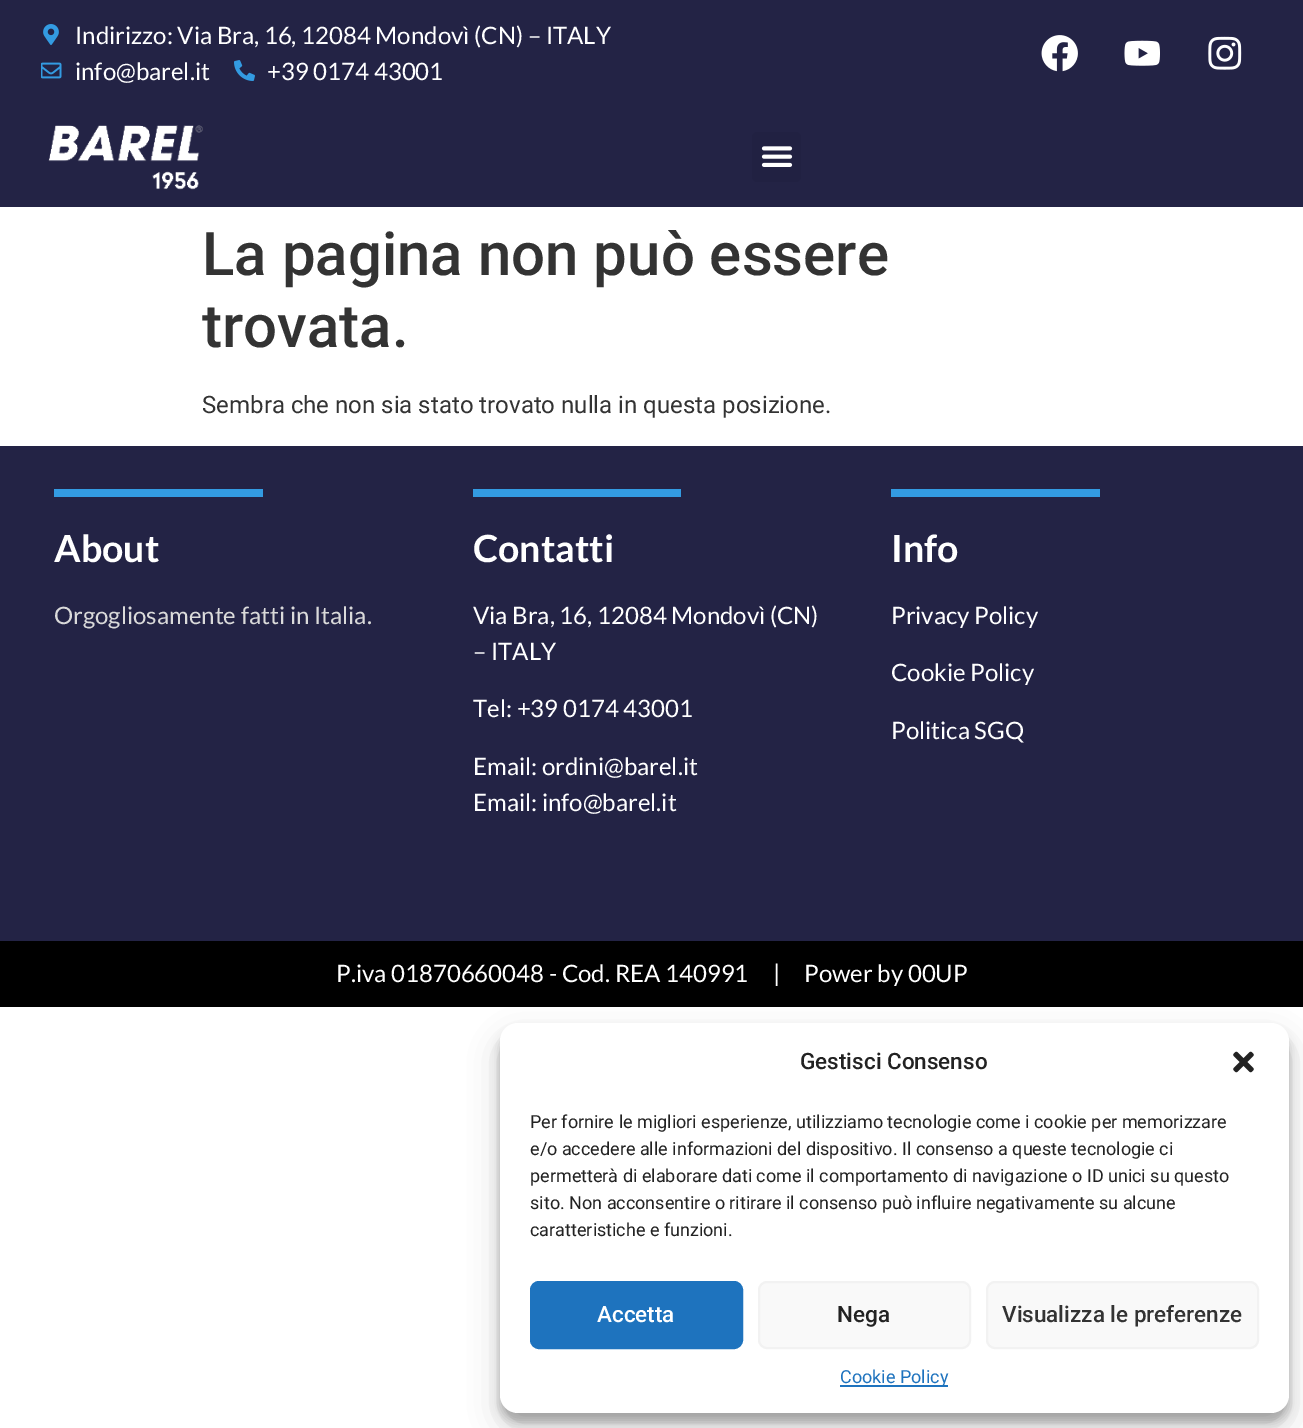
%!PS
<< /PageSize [1303 1428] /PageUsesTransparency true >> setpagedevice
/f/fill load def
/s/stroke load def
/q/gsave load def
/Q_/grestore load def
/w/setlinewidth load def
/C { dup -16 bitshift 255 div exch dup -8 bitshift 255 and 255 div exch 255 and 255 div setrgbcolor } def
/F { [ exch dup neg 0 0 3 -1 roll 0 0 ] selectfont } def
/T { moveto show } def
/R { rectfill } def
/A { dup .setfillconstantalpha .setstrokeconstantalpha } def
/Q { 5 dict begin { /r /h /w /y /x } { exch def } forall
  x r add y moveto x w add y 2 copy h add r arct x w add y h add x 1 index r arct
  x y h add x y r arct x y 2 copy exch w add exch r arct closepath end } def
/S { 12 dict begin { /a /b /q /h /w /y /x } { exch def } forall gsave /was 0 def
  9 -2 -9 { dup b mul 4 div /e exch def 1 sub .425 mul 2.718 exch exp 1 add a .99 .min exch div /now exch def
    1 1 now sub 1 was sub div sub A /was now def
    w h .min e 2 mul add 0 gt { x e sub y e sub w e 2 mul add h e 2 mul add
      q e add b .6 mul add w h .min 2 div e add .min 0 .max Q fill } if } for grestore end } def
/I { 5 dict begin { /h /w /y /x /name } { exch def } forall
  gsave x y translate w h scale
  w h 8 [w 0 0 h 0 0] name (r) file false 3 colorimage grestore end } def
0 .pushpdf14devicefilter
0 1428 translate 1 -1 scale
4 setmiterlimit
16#FFFFFF C
0 0 1303 1428 R
16#232345 C
0 0 1303 207 R
(1.rgb) 43 24 16 21 I
/Lato-Regular 24 F
16#FFFFFF C
(Indirizzo: Via Bra, 16, 12084 Mondovì \(CN\) – ITALY) 75 44 T
(2.rgb) 41 62 21 17 I
(info@barel.it) 75 80 T
(3.rgb) 234 60 21 21 I
(+39 0174 43001) 267 80 T
(4.rgb) 1041 35 37 37 I
(5.rgb) 1124 40 36 26 I
(6.rgb) 1208 36 34 34 I
(7.rgb) 48 125 155 65 I
16#212142 C
752 132 49 50 5 Q f
(8.rgb) 761 146 32 21 I
/Roboto-Medium 60 F
16#333333 C
(La pagina non può essere) 202 275 T
(trovata.) 202 347 T
/Roboto-Regular 24 F
(Sembra che non sia stato trovato nulla in questa posizione.) 202 413 T
16#232345 C
0 446 1303 495 R
16#339BE2 C
54 489 209 8 R
/Lato-Bold 37.5 F
16#FFFFFF C
(About) 54 562 T
/Lato-Regular 24 F
16#DADADA C
(Orgogliosamente fatti in Italia.) 54 624 T
16#339BE2 C
473 489 208 8 R
/Lato-Bold 37.5 F
16#FFFFFF C
(Contatti) 473 562 T
/Lato-Regular 24 F
(Via Bra, 16, 12084 Mondovì \(CN\)) 473 624 T
(– ITALY) 473 660 T
(Tel: +39 0174 43001) 473 717 T
(Email: ordini@barel.it) 473 775 T
(Email: info@barel.it) 473 811 T
16#339BE2 C
891 489 209 8 R
/Lato-Bold 37.5 F
16#FFFFFF C
(Info) 891 562 T
/Lato-Regular 24 F
(Privacy Policy) 891 624 T
(Cookie Policy) 891 681 T
(Politica SGQ) 891 739 T
16#000000 C
0 941 1303 66 R
16#FFFFFF C
(P.iva 01870660048 - Cod. REA 140991) 336 982 T
(|) 773 982 T
(Power by 00UP) 804 982 T
16#000000 C
500 1032 789 390 18 4.5 .23 S
500 1038 789 390 18 15 .19 S
16#FFFFFF C
500 1023 789 390 18 Q f
/Roboto-Medium 22.5 F
16#222222 C
(Gestisci Consenso) 800 1069 T
(9.rgb) 1233 1051 21 22 I
/Roboto-Regular 18 F
(Per fornire le migliori esperienze, utilizziamo tecnologie come i cookie per memorizzare) 530 1128 T
(e/o accedere alle informazioni del dispositivo. Il consenso a queste tecnologie ci) 530 1155 T
(permetterà di elaborare dati come il comportamento di navigazione o ID unici su questo) 530 1182 T
(sito. Non acconsentire o ritirare il consenso può influire negativamente su alcune) 530 1209 T
(caratteristiche e funzioni.) 530 1236 T
16#1E73BE C
531 1282 211 66 8 Q q f Q_
2 w
s
/Roboto-Medium 22.5 F
16#FFFFFF C
(Accetta) 597 1322 T
16#F9F9F9 C
759 1282 211 66 8 Q q f Q_
16#F2F2F2 C
s
16#222222 C
(Nega) 837 1322 T
16#F9F9F9 C
987 1282 271 66 8 Q q f Q_
16#F2F2F2 C
s
16#333333 C
(Visualizza le preferenze) 1002 1322 T
16#1E73BE C
840 1385 108 2 R
/Roboto-Regular 18 F
(Cookie Policy) 840 1383 T
.poppdf14devicefilter showpage
